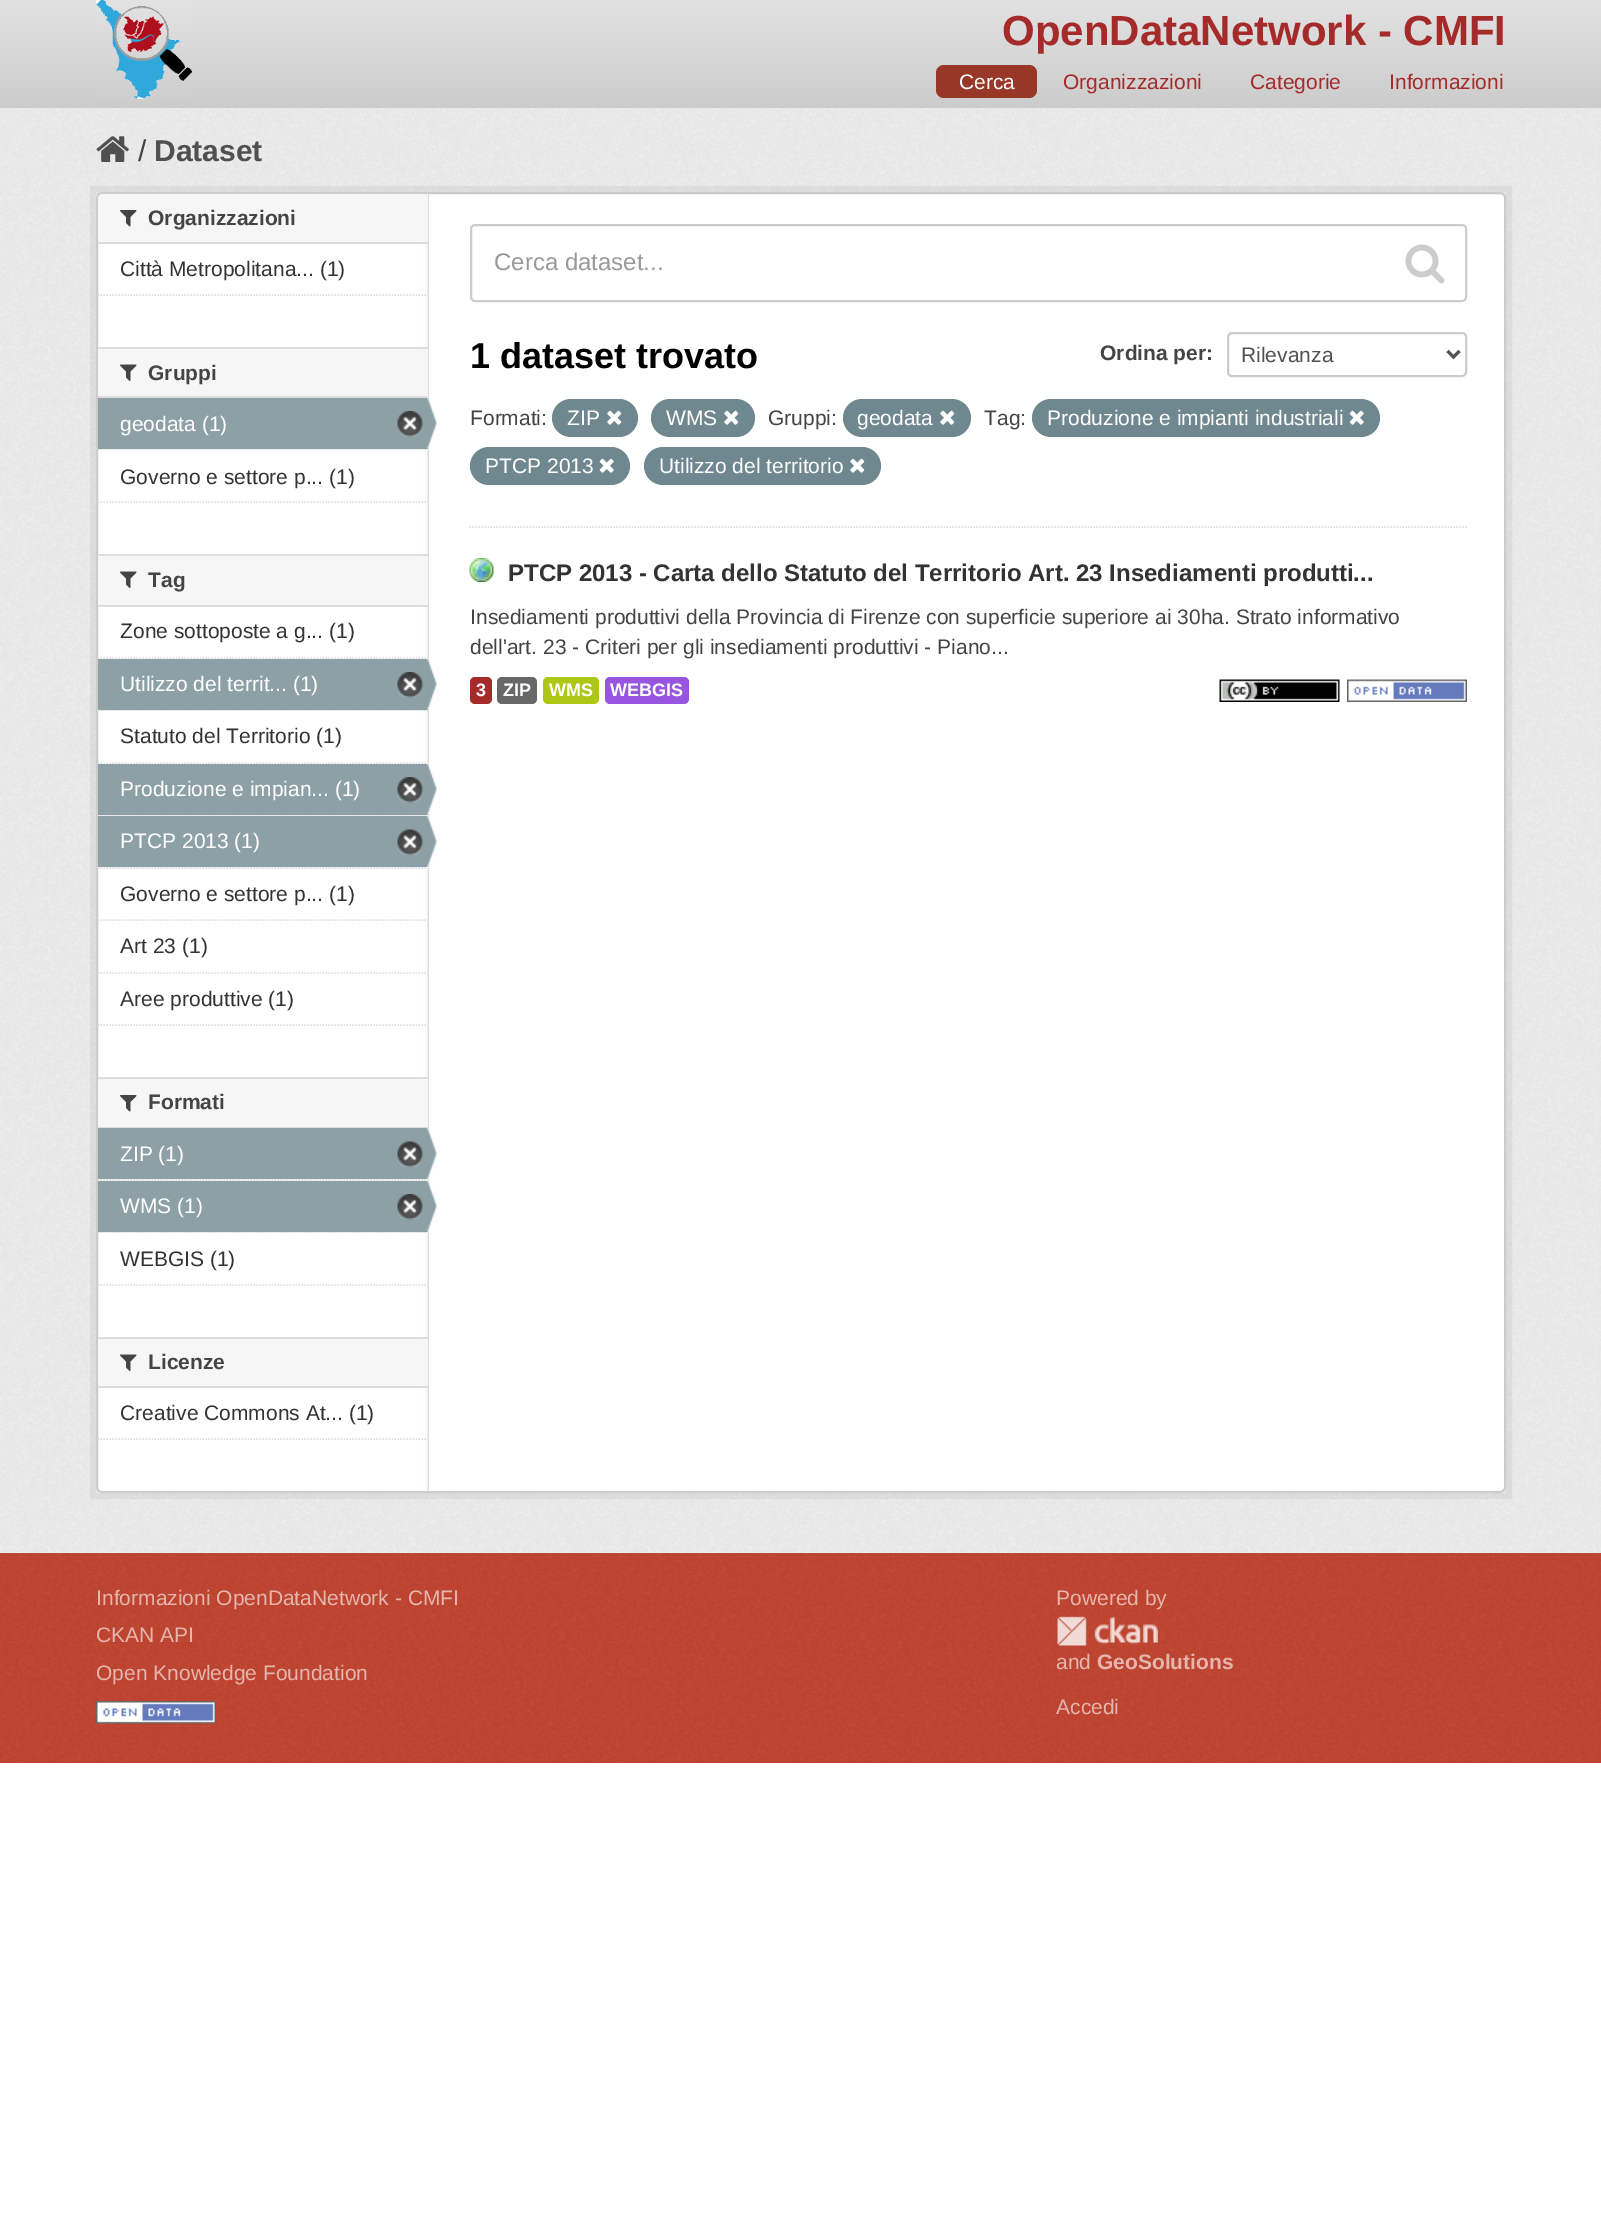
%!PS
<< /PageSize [1601 2227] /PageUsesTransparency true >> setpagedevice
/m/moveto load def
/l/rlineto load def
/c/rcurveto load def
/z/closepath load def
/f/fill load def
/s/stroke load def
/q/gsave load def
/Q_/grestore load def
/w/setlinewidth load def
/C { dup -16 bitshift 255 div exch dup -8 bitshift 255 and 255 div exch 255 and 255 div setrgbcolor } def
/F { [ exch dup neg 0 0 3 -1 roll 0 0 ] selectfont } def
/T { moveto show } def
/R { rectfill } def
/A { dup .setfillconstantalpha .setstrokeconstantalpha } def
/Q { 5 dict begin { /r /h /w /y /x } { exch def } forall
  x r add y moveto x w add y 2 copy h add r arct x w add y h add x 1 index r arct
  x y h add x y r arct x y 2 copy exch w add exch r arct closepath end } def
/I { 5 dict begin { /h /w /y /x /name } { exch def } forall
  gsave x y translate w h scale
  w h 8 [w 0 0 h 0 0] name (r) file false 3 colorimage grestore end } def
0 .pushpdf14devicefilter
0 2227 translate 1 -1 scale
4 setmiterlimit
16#FFFFFF C
0 0 1601 2227 R
q 0 0 m 1601 0 l 0 107 l -1601 0 l z clip newpath
<< /ShadingType 2 /ColorSpace /DeviceRGB /Coords [801 0 801 107] /Extend [true true] /Function << /FunctionType 2 /Domain [0 1] /C0 [.886 .886 .886] /C1 [.8 .8 .8] /N 1 >> >> shfill Q_
16#CCCCCC C
0 107 1601 1 R
(1.rgb) 96 0 96 99 I
/LiberationSans-Bold 42 F
16#A52A2A C
(OpenDataNetwork - CMFI) 1002 45 T
16#983627 C
936 65 101 33 8 Q f
/LiberationSans-Regular 21 F
16#FFFFFF C
(Cerca) 959 89 T
16#A52A2A C
(Organizzazioni) 1063 89 T
(Categorie) 1250 89 T
(Informazioni) 1389 89 T
16#EEEEEE C
0 108 1601 1445 R
(2.rgb) 0 108 1601 1444 I
(3.rgb) 96 136 33 26 I
/LiberationSans-Regular 30 F
16#444444 C
(/) 138 161 T
/LiberationSans-Bold 30 F
16#505050 C
(Dataset) 154 161 T
0.05 A
16#000000 C
6 w
93 189 1416 1307 rectstroke
1 A
16#FFFFFF C
96 192 1410 1301 6 Q f
(4.rgb) 99 192 330 1301 I
16#CCCCCC C
2 w
97 193 1408 1299 5 Q s
16#F6F6F6 C
103 194 m 325 0 l 0 49 l -330 0 l 0 -44 l 0 -3 2 -5 5 -5 c z f
16#DDDDDD C
98 242 330 2 R
(5.rgb) 120 210 17 17 I
/LiberationSans-Bold 21 F
16#444444 C
(Organizzazioni) 148 225 T
/LiberationSans-Regular 21 F
16#333333 C
(Città Metropolitana... \(1\)) 120 276 T
16#DDDDDD C
1.5 w
[1.5 1.5] 0 setdash
97.5 295 m 330 0 l s
16#F6F6F6 C
98 349 330 47 R
16#DDDDDD C
98 347 330 2 R
98 396 330 2 R
(6.rgb) 120 364 17 17 I
/LiberationSans-Bold 21 F
16#444444 C
(Gruppi) 148 380 T
16#F6F6F6 C
98 449 330 1 R
16#DDDDDD C
97.5 449 m 330 0 l s
16#8CA0A6 C
98 398 330 51 R
/LiberationSans-Regular 21 F
16#FFFFFF C
(geodata \(1\)) 120 431 T
(7.rgb) 397 411 26 26 I
(8.rgb) 427 397 10 52 I
16#333333 C
(Governo e settore p... \(1\)) 120 484 T
16#DDDDDD C
97.5 502 m 330 0 l s
16#F6F6F6 C
98 556 330 49 R
16#DDDDDD C
98 554 330 2 R
98 605 330 2 R
(6.rgb) 120 571 17 17 I
/LiberationSans-Bold 21 F
16#444444 C
(Tag) 148 587 T
16#DDDDDD C
97.5 658 m 330 0 l s
/LiberationSans-Regular 21 F
16#333333 C
(Zone sottoposte a g... \(1\)) 120 638 T
16#F6F6F6 C
98 710 330 1 R
16#DDDDDD C
97.5 710 m 330 0 l s
16#8CA0A6 C
98 659 330 51 R
16#FFFFFF C
(Utilizzo del territ... \(1\)) 120 691 T
(7.rgb) 397 672 26 26 I
(9.rgb) 427 658 10 52 I
16#DDDDDD C
97.5 763 m 330 0 l s
16#333333 C
(Statuto del Territorio \(1\)) 120 743 T
16#F6F6F6 C
98 815 330 1 R
16#DDDDDD C
97.5 815 m 330 0 l s
16#8CA0A6 C
98 764 330 51 R
16#FFFFFF C
(Produzione e impian... \(1\)) 120 796 T
(7.rgb) 397 777 26 26 I
(9.rgb) 427 763 10 52 I
16#F6F6F6 C
98 867 330 2 R
16#DDDDDD C
97.5 868 m 330 0 l s
16#8CA0A6 C
98 816 330 51 R
16#FFFFFF C
(PTCP 2013 \(1\)) 120 848 T
(10.rgb) 397 829 26 26 I
(11.rgb) 427 816 10 51 I
16#DDDDDD C
97.5 920 m 330 0 l s
16#333333 C
(Governo e settore p... \(1\)) 120 901 T
16#DDDDDD C
97.5 973 m 330 0 l s
16#333333 C
(Art 23 \(1\)) 120 953 T
(Aree produttive \(1\)) 120 1006 T
16#DDDDDD C
97.5 1025 m 330 0 l s
16#F6F6F6 C
98 1079 330 48 R
16#DDDDDD C
98 1077 330 2 R
98 1127 330 1 R
(5.rgb) 120 1095 17 17 I
/LiberationSans-Bold 21 F
16#444444 C
(Formati) 148 1109 T
16#F6F6F6 C
98 1179 330 2 R
16#DDDDDD C
97.5 1180 m 330 0 l s
16#8CA0A6 C
98 1128 330 51 R
/LiberationSans-Regular 21 F
16#FFFFFF C
(ZIP \(1\)) 120 1161 T
(10.rgb) 397 1141 26 26 I
(11.rgb) 427 1128 10 51 I
16#F6F6F6 C
98 1232 330 1 R
16#DDDDDD C
97.5 1232 m 330 0 l s
16#8CA0A6 C
98 1181 330 51 R
16#FFFFFF C
(WMS \(1\)) 120 1213 T
(7.rgb) 397 1194 26 26 I
(12.rgb) 427 1180 10 52 I
16#333333 C
(WEBGIS \(1\)) 120 1266 T
16#DDDDDD C
97.5 1285 m 330 0 l s
16#F6F6F6 C
98 1339 330 47 R
16#DDDDDD C
98 1337 330 2 R
98 1386 330 2 R
(6.rgb) 120 1354 17 17 I
/LiberationSans-Bold 21 F
16#444444 C
(Licenze) 148 1369 T
/LiberationSans-Regular 21 F
16#333333 C
(Creative Commons At... \(1\)) 120 1420 T
16#DDDDDD C
97.5 1439 m 330 0 l s
469.5 527 m 997.5 0 l s
16#CCCCCC C
2 w
[] 0 setdash
471 225 995 76 4 Q s
/LiberationSans-Regular 24 F
16#999999 C
(Cerca dataset...) 494 270 T
(13.rgb) 1405 244 40 40 I
/LiberationSans-Bold 36 F
16#000000 C
(1 dataset trovato) 470 368 T
/LiberationSans-Bold 21 F
16#444444 C
(Ordina per:) 1100 360 T
16#CCCCCC C
1228 333 238 43 4 Q s
16#555555 C
3 w
1447.5 351 m 6 6 l 6 -6 l s
/LiberationSans-Regular 21 F
16#505050 C
(Rilevanza) 1241 362 T
16#444444 C
(Formati:) 470 425 T
16#6F8890 C
552 399 86 38 19 Q f
16#FFFFFF C
(ZIP) 567 425 T
(14.rgb) 607 410 15 15 I
16#6F8890 C
651 399 104 38 19 Q f
16#FFFFFF C
(WMS) 666 425 T
(14.rgb) 724 410 15 15 I
16#444444 C
(Gruppi:) 768 425 T
16#6F8890 C
843 399 128 38 19 Q f
16#FFFFFF C
(geodata) 857 425 T
(14.rgb) 940 410 15 15 I
16#444444 C
(Tag:) 984 425 T
16#6F8890 C
1032 399 348 38 19 Q f
16#FFFFFF C
(Produzione e impianti industriali) 1047 425 T
(15.rgb) 1349 410 15 15 I
16#6F8890 C
470 447 160 38 19 Q f
16#FFFFFF C
(PTCP 2013) 485 473 T
(15.rgb) 599 458 15 15 I
16#6F8890 C
644 447 237 38 19 Q f
16#FFFFFF C
(Utilizzo del territorio) 659 473 T
(14.rgb) 850 458 15 15 I
(16.rgb) 469 558 25 24 I
/LiberationSans-Bold 24 F
16#333333 C
(PTCP 2013 - Carta dello Statuto del Territorio Art. 23 Insediamenti produtti...) 508 581 T
/LiberationSans-Regular 21 F
16#444444 C
(Insediamenti produttivi della Provincia di Firenze con superficie superiore ai 30ha. Strato informativo) 470 624 T
(dell'art. 23 - Criteri per gli insediamenti produttivi - Piano...) 470 654 T
16#A52A2A C
470 677 22 27 5 Q f
/LiberationSans-Bold 18 F
16#FFFFFF C
(3) 476 696 T
16#686868 C
497 677 40 27 5 Q f
16#FFFFFF C
(ZIP) 503 696 T
16#ADC717 C
543 677 56 27 5 Q f
16#FFFFFF C
(WMS) 549 696 T
16#9855E0 C
605 677 84 27 5 Q f
16#FFFFFF C
(WEBGIS) 610 696 T
(17.rgb) 1219 679 121 23 I
(18.rgb) 1347 679 120 23 I
16#C14531 C
0 1553 1601 210 R
(19.rgb) 0 1553 1601 209 I
/LiberationSans-Regular 21 F
16#E6B5AD C
(Informazioni OpenDataNetwork - CMFI) 96 1605 T
(CKAN API) 96 1642 T
(Open Knowledge Foundation) 96 1680 T
(20.rgb) 96 1701 120 23 I
(Powered by) 1056 1605 T
(21.rgb) 1057 1616 101 30 I
(and) 1056 1669 T
/LiberationSans-Bold 21 F
(GeoSolutions) 1097 1669 T
/LiberationSans-Regular 21 F
(Accedi) 1056 1714 T
.poppdf14devicefilter showpage
